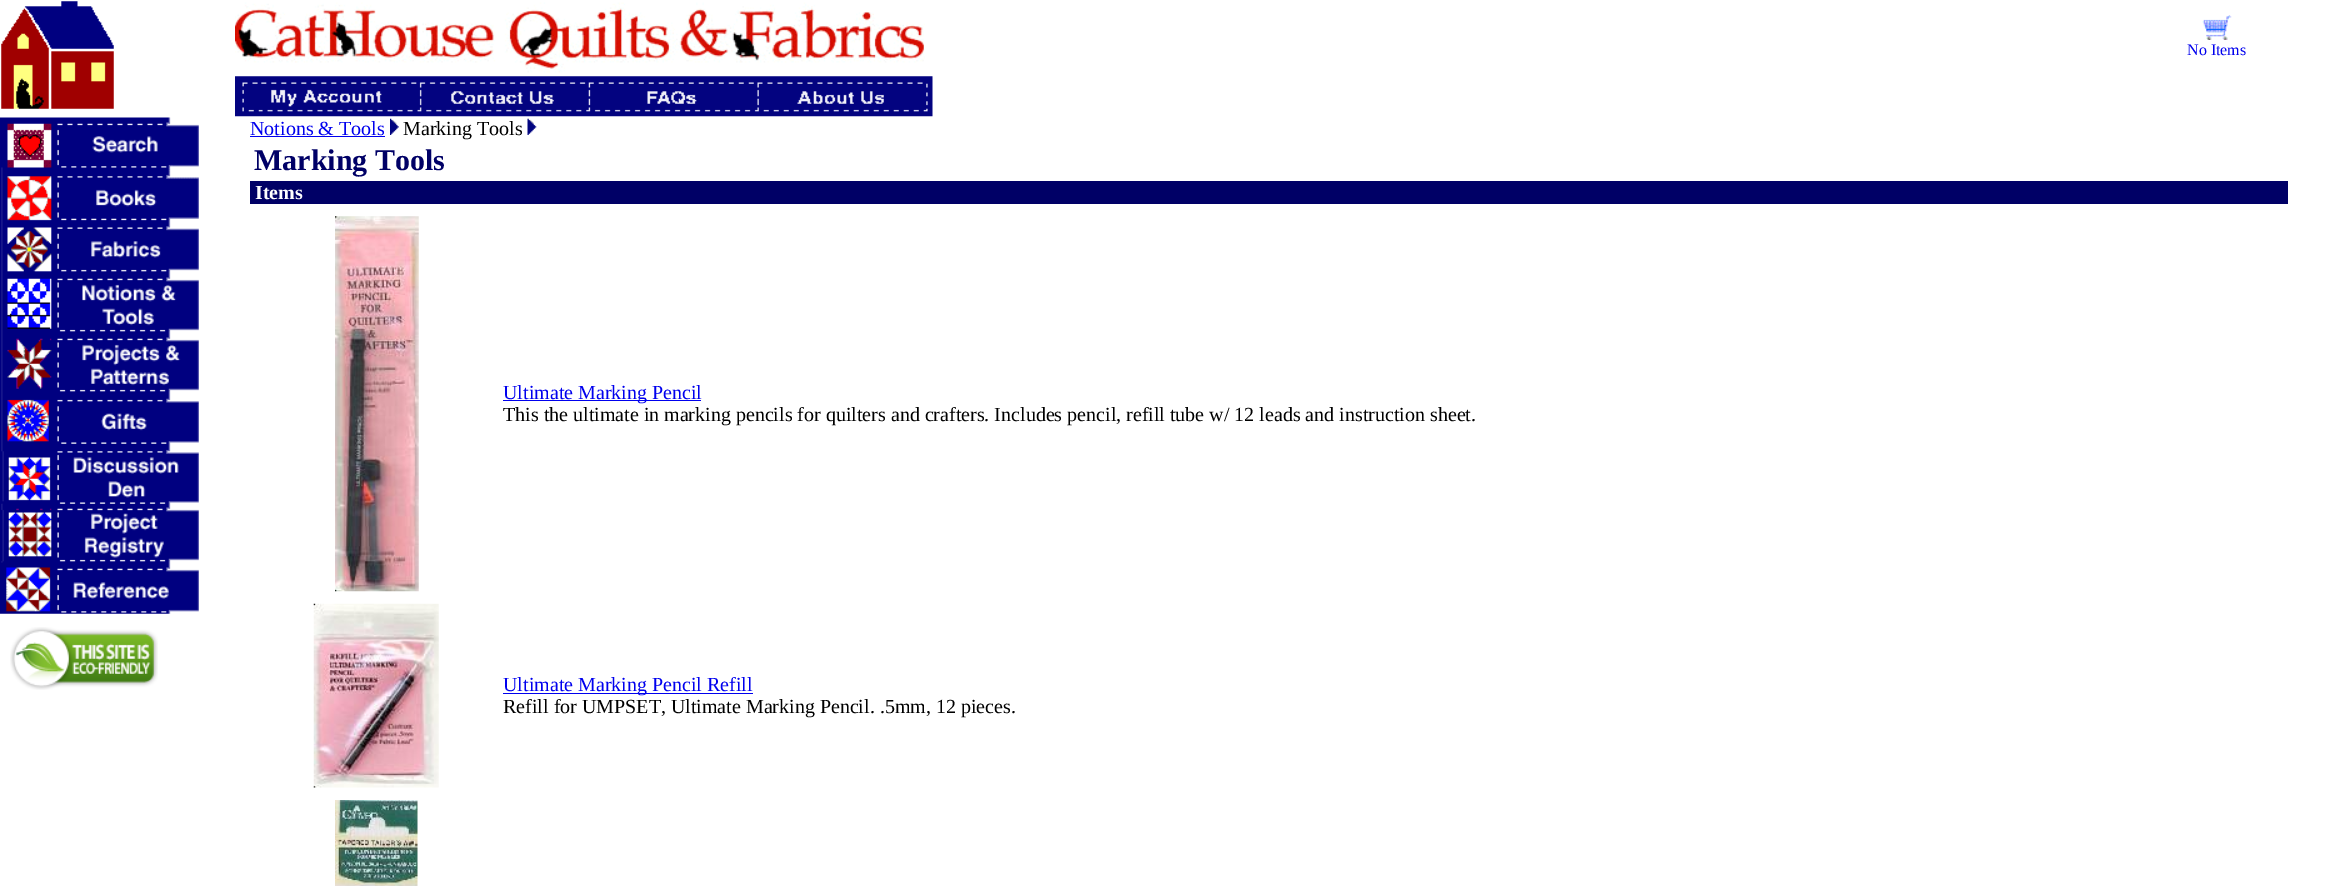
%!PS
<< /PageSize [2333 886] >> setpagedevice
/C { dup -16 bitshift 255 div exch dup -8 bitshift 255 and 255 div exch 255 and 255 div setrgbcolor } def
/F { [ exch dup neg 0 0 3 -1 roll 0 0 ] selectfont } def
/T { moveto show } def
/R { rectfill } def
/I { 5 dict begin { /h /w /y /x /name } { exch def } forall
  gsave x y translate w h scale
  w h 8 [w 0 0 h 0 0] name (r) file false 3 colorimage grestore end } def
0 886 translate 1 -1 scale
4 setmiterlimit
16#FFFFFF C
0 0 2333 886 R
(1.rgb) 1 1 113 108 I
(2.rgb) 235 2 690 71 I
(3.rgb) 2202 15 30 25 I
/LiberationSerif-Regular 16 F
16#0000EE C
(No Items) 2187 55 T
(4.rgb) 235 76 698 41 I
(5.rgb) 0 117 199 497 I
(6.rgb) 10 627 148 63 I
/LiberationSerif-Regular 20 F
(Notions & Tools) 250 135 T
250 136 135 1 R
(7.rgb) 390 118 9 17 I
16#000000 C
(Marking Tools) 403 135 T
(8.rgb) 527 118 10 17 I
/LiberationSerif-Bold 30 F
16#000066 C
(Marking Tools) 254 170 T
250 181 2038 23 R
/LiberationSerif-Bold 20 F
16#FFFFFF C
(Items) 255 199 T
(9.rgb) 335 216 84 376 I
16#0000EE C
503 400 198 1 R
/LiberationSerif-Regular 20 F
(Ultimate Marking Pencil) 503 399 T
16#000000 C
(This the ultimate in marking pencils for quilters and crafters. Includes pencil, refill tube w/ 12 leads and instruction sheet.) 503 421 T
(10.rgb) 313 603 126 185 I
16#0000EE C
503 693 250 1 R
(Ultimate Marking Pencil Refill) 503 691 T
16#000000 C
(Refill for UMPSET, Ultimate Marking Pencil. .5mm, 12 pieces.) 503 713 T
(11.rgb) 335 800 83 86 I
showpage
